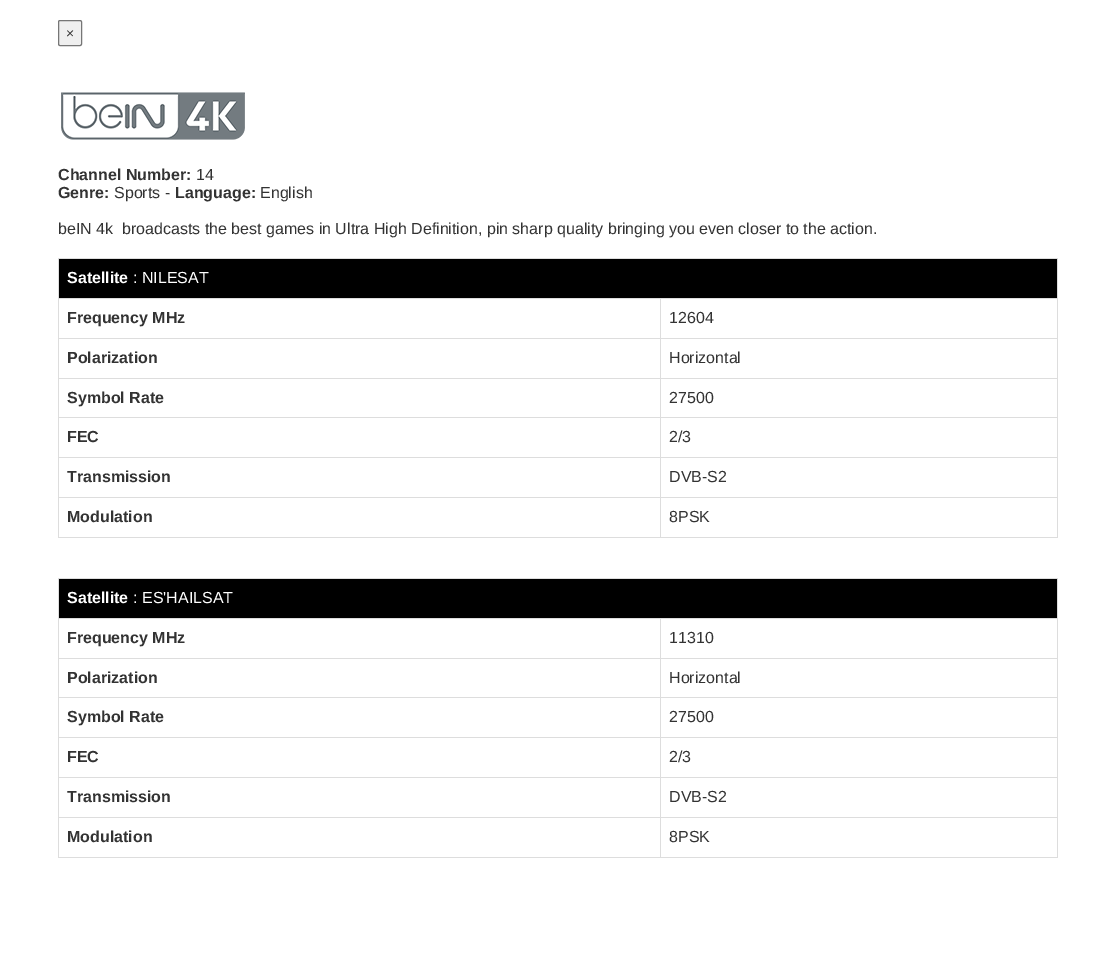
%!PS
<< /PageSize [1116 963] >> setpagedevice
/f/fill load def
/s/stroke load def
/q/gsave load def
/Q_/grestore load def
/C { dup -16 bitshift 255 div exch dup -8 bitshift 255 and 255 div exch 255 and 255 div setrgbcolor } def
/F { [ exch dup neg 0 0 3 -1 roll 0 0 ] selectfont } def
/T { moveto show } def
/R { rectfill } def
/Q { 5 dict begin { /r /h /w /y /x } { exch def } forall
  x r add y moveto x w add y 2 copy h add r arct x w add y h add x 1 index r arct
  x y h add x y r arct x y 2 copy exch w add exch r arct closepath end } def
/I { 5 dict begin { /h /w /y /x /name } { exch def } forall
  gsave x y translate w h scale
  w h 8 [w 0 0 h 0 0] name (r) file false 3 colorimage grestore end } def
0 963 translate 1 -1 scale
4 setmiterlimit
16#FFFFFF C
0 0 1116 963 R
16#EFEFEF C
58.5 20.5 23 25 1.5 Q q f Q_
16#767676 C
s
/LiberationSans-Regular 14 F
16#333333 C
(×) 66 38 T
(1.rgb) 61 92 184 48 I
/LiberationSans-Bold 16 F
(Channel Number:) 58 180 T
/LiberationSans-Regular 16 F
(14) 196 180 T
/LiberationSans-Bold 16 F
(Genre:) 58 198 T
/LiberationSans-Regular 16 F
(Sports -) 114 198 T
/LiberationSans-Bold 16 F
(Language:) 175 198 T
/LiberationSans-Regular 16 F
(English) 260 198 T
(beIN 4k  broadcasts the best games in Ultra High Definition, pin sharp quality bringing you even closer to the action.) 58 234 T
16#DDDDDD C
58 258 1000 1 R
1057 258 1 280 R
58 537 1000 1 R
58 258 1 280 R
16#000000 C
59 259 998 39 R
/LiberationSans-Bold 16 F
16#FFFFFF C
(Satellite) 67 283 T
/LiberationSans-Regular 16 F
(: NILESAT) 133 283 T
16#DDDDDD C
660 298 398 1 R
660 338 398 1 R
660 378 398 1 R
660 417 398 1 R
660 457 398 1 R
660 497 398 1 R
660 497 1 41 R
58 497 603 1 R
660 457 1 41 R
58 457 603 1 R
660 417 1 41 R
58 417 603 1 R
660 378 1 40 R
58 378 603 1 R
660 338 1 41 R
58 338 603 1 R
660 298 1 41 R
58 298 603 1 R
/LiberationSans-Bold 16 F
16#333333 C
(Frequency MHz) 67 323 T
/LiberationSans-Regular 16 F
(12604) 669 323 T
/LiberationSans-Bold 16 F
(Polarization) 67 363 T
/LiberationSans-Regular 16 F
(Horizontal) 669 363 T
/LiberationSans-Bold 16 F
(Symbol Rate) 67 403 T
/LiberationSans-Regular 16 F
(27500) 669 403 T
/LiberationSans-Bold 16 F
(FEC) 67 442 T
/LiberationSans-Regular 16 F
(2/3) 669 442 T
/LiberationSans-Bold 16 F
(Transmission) 67 482 T
/LiberationSans-Regular 16 F
(DVB-S2) 669 482 T
/LiberationSans-Bold 16 F
(Modulation) 67 522 T
/LiberationSans-Regular 16 F
(8PSK) 669 522 T
16#DDDDDD C
58 578 1000 1 R
1057 578 1 280 R
58 857 1000 1 R
58 578 1 280 R
16#000000 C
59 579 998 39 R
/LiberationSans-Bold 16 F
16#FFFFFF C
(Satellite) 67 603 T
/LiberationSans-Regular 16 F
(: ES'HAILSAT) 133 603 T
16#DDDDDD C
660 618 398 1 R
660 658 398 1 R
660 697 398 1 R
660 737 398 1 R
660 777 398 1 R
660 817 398 1 R
660 817 1 41 R
58 817 603 1 R
660 777 1 41 R
58 777 603 1 R
660 737 1 41 R
58 737 603 1 R
660 697 1 41 R
58 697 603 1 R
660 658 1 40 R
58 658 603 1 R
660 618 1 41 R
58 618 603 1 R
/LiberationSans-Bold 16 F
16#333333 C
(Frequency MHz) 67 643 T
/LiberationSans-Regular 16 F
(11310) 669 643 T
/LiberationSans-Bold 16 F
(Polarization) 67 683 T
/LiberationSans-Regular 16 F
(Horizontal) 669 683 T
/LiberationSans-Bold 16 F
(Symbol Rate) 67 722 T
/LiberationSans-Regular 16 F
(27500) 669 722 T
/LiberationSans-Bold 16 F
(FEC) 67 762 T
/LiberationSans-Regular 16 F
(2/3) 669 762 T
/LiberationSans-Bold 16 F
(Transmission) 67 802 T
/LiberationSans-Regular 16 F
(DVB-S2) 669 802 T
/LiberationSans-Bold 16 F
(Modulation) 67 842 T
/LiberationSans-Regular 16 F
(8PSK) 669 842 T
showpage
